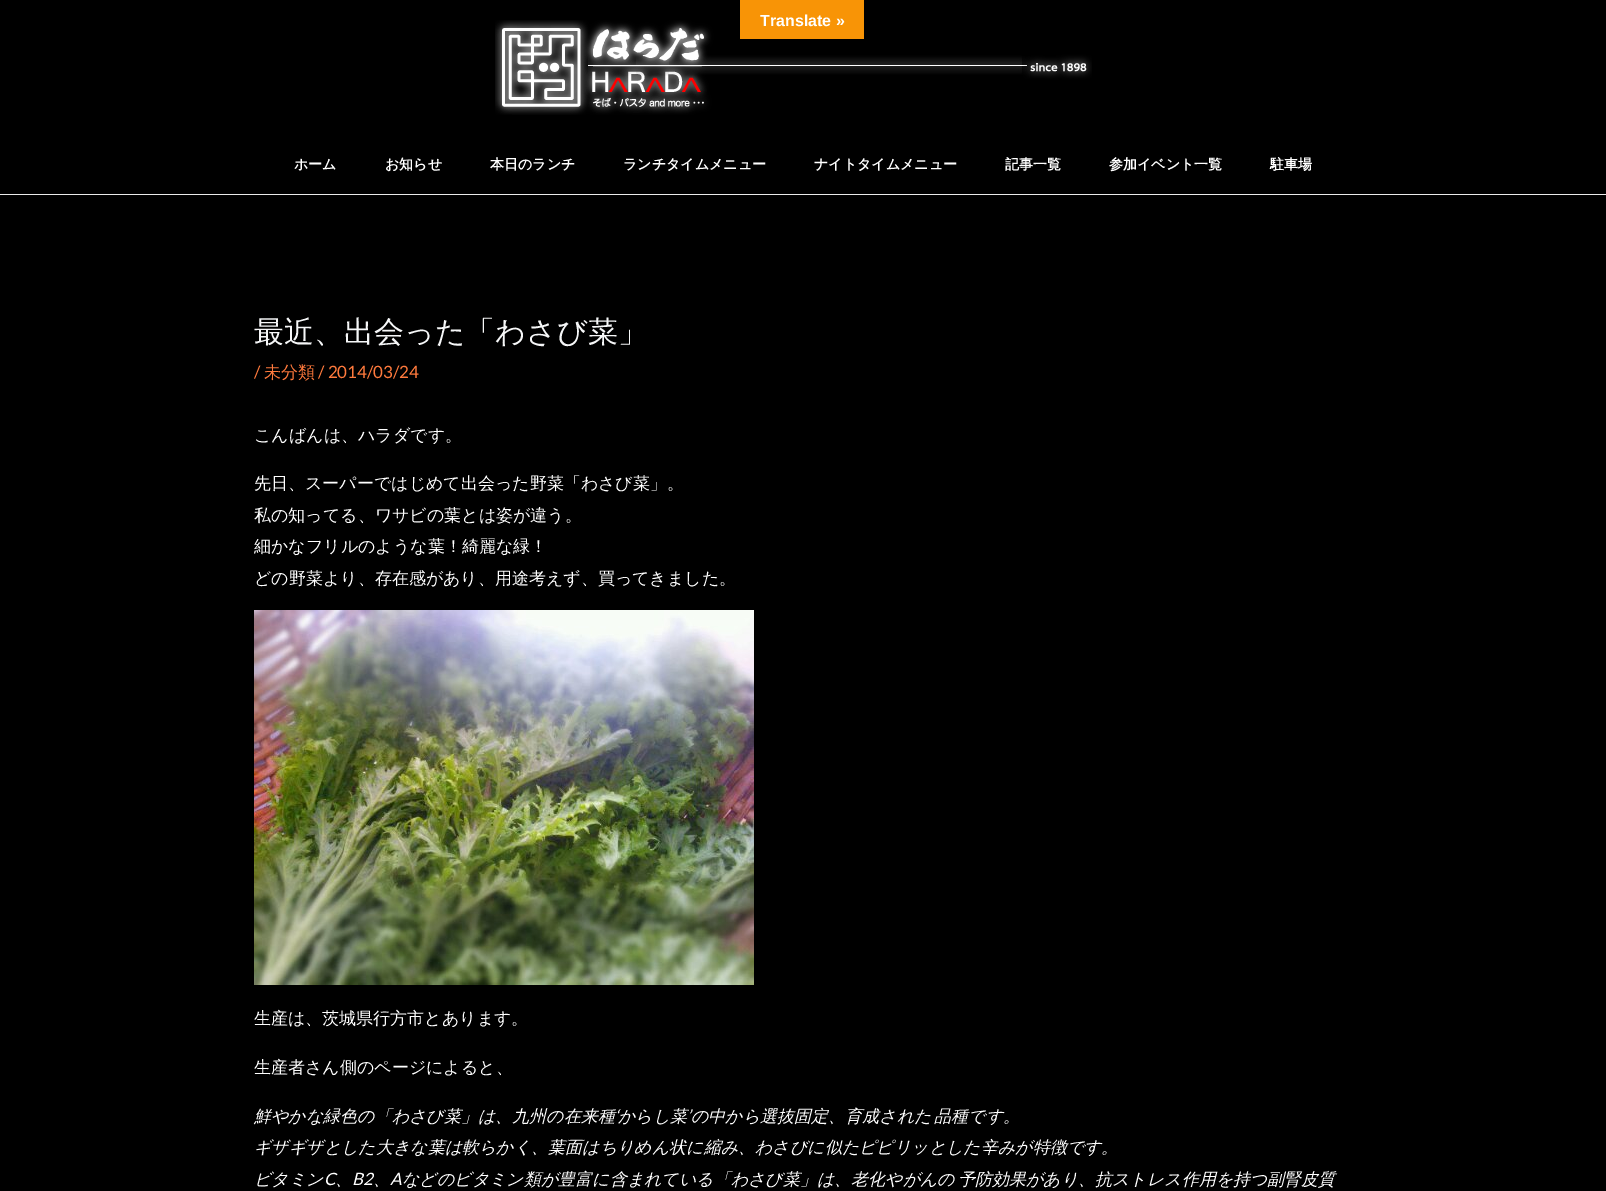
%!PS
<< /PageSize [1606 1191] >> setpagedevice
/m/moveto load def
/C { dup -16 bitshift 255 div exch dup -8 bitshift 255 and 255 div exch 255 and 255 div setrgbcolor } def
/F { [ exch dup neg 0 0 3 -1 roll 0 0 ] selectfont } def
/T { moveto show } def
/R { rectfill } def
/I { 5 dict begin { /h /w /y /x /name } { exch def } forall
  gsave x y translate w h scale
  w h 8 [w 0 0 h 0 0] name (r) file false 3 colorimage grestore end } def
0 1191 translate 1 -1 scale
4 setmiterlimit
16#000000 C
0 0 1606 1191 R
(1.rgb) 495 20 597 95 I
16#F89406 C
740 0 124 39 R
/LiberationSans-Bold 16 F
16#FFFFFF C
(Translate ») 760 26 T
16#EAEAEA C
0 194 1606 1 R
/WenQuanYiZenHei-Bold 14 F
16#FFFFFF C
(ホーム) 294 169 T
(お知らせ) 385 169 T
(本日のランチ) 490 169 T
(ランチタイムメニュー) 623 169 T
(ナイトタイムメニュー) 814 169 T
(記事一覧) 1005 169 T
(参加イベント一覧) 1109 169 T
(駐車場) 1270 169 T
/WenQuanYiZenHei-Medium 30 F
16#F6F7F8 C
(最近、出会った「わさび菜」) 254 342 T
/Lato-Regular 17 F
16#FF7A3D C
(/) 254 378 T
/WenQuanYiZenHei-Medium 17 F
(未分類) 264 378 T
/Lato-Regular 17 F
(/ 2014/03/24) 318 378 T
/WenQuanYiZenHei-Medium 17 F
16#FFFFFF C
(こんばんは、ハラダです。) 254 441 T
(先日、スーパーではじめて出会った野菜「わさび菜」。) 254 489 T
(私の知ってる、ワサビの葉とは姿が違う。) 254 521 T
(細かなフリルのような葉！綺麗な緑！) 254 552 T
(どの野菜より、存在感があり、用途考えず、買ってきました。) 254 584 T
(2.rgb) 254 610 500 375 I
(生産は、茨城県行方市とあります。) 254 1024 T
(生産者さん側のページによると、) 254 1073 T
/WenQuanYiZenHei-MediumItalic 17 F
(鮮やかな緑色の「わさび菜」は、九州の在来種) 254 1122 T
/Lato-Italic 17 F
(‘) 615 1122 T
/WenQuanYiZenHei-MediumItalic 17 F
(からし菜) 618 1122 T
/Lato-Italic 17 F
(’) 687 1122 T
/WenQuanYiZenHei-MediumItalic 17 F
691 1122 m -2 0 32 (の中から選抜固定、育成された 品種です。) widthshow
(ギザギザとした大きな葉は軟らかく、葉面はちりめん状に縮み、わさびに似たピピリッとした辛みが特徴です。) 254 1153 T
(ビタミン) 254 1185 T
/Lato-Italic 17 F
(C) 324 1185 T
(B2) 352 1185 T
(A) 390 1185 T
/WenQuanYiZenHei-MediumItalic 17 F
402 1185 m -2 0 32 (などのビタミン類が豊富に含まれている「わさび菜」は、老化やがんの 予防効果があり、抗ストレス作用を持つ副腎皮質) widthshow
(、) 335 1185 T
(、) 373 1185 T
showpage
